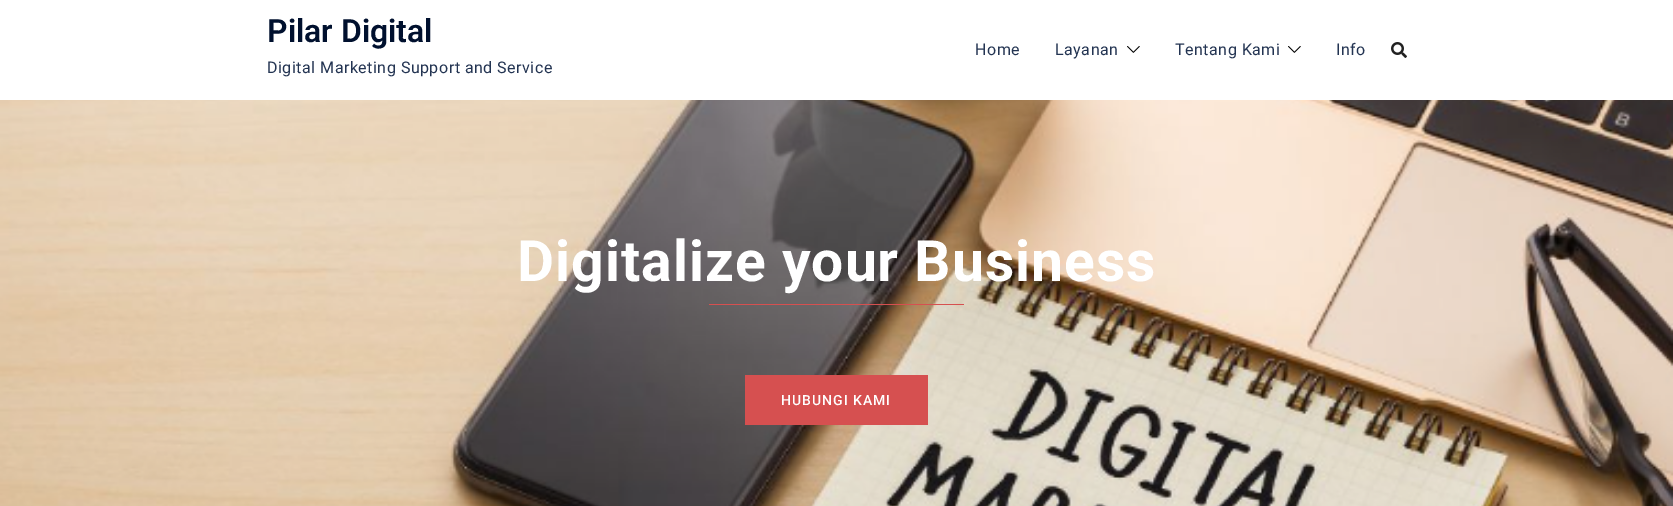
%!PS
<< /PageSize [1673 506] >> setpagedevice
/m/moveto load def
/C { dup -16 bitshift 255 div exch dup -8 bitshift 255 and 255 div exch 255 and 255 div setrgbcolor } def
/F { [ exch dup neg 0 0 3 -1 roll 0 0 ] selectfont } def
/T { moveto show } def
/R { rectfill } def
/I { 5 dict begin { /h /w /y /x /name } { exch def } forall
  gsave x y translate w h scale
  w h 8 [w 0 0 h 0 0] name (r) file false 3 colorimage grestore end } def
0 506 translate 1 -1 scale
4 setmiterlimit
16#FFFFFF C
0 0 1673 506 R
/Roboto-SemiBold 32 F
16#00102E C
(Pilar Digital) 267 42 T
/Roboto-Regular 16 F
16#233452 C
267 73 m .5 0 (Digital Marketing Support and Service) ashow
975 55 m .5 0 (Home) ashow
1055 55 m .5 0 (Layanan) ashow
(1.rgb) 1127 46 13 7 I
1175 55 m .5 0 (Tentang Kami) ashow
(1.rgb) 1288 46 13 7 I
1336 55 m .5 0 (Info) ashow
(2.rgb) 1391 42 16 16 I
(3.rgb) 0 100 1673 406 I
/Roboto-Bold 57 F
16#FFFFFF C
517 281 m 1 0 (Digitalize your Business) ashow
16#D65050 C
709 304 255 1 R
745 375 183 50 R
/Roboto-Medium 14 F
16#FFFFFF C
781 405 m 1 0 (HUBUNGI KAMI) ashow
showpage
